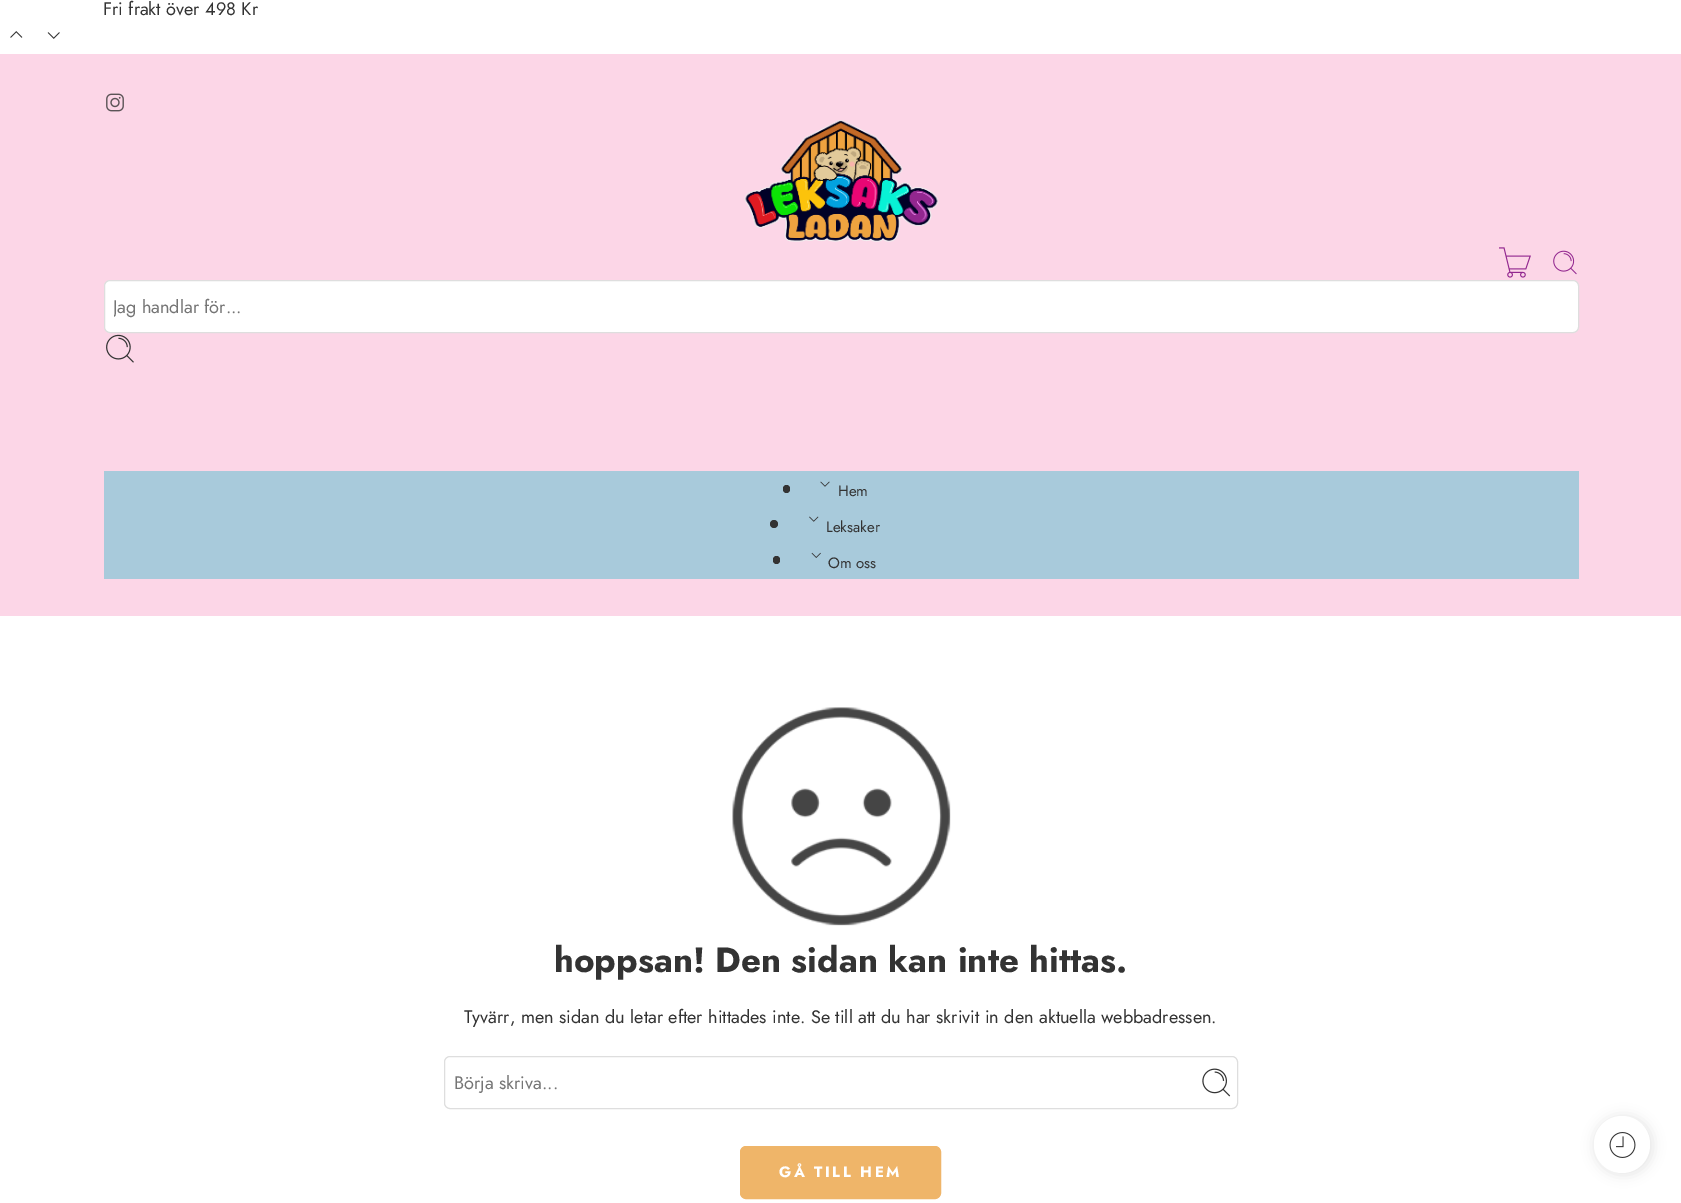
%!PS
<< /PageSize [1681 1203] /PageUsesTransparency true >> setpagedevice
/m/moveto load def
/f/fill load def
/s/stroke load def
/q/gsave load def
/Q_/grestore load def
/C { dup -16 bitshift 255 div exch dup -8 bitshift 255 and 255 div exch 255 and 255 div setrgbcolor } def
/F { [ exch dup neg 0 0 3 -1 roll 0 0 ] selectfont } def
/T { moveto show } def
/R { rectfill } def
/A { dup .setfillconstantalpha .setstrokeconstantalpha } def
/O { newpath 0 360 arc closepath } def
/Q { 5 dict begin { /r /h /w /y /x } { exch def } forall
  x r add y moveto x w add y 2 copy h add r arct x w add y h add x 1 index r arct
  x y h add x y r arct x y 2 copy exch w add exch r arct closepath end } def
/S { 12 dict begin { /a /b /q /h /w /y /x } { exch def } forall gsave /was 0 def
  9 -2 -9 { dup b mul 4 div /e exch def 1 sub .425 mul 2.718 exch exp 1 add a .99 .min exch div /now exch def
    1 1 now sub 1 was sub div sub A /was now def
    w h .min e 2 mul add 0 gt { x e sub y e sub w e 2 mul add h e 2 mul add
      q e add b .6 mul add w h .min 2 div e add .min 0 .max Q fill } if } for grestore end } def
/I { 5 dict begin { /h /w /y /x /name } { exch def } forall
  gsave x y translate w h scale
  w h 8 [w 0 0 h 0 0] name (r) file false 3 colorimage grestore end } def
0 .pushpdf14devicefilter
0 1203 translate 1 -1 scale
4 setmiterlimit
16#FFFFFF C
0 0 1681 1203 R
/Jost-Regular 18.1 F
16#333333 C
(Fri frakt över 498 Kr) 103 15 T
(1.rgb) 10 31 13 7 I
(2.rgb) 47 32 13 7 I
16#FCD6E7 C
0 54 1681 562 R
(3.rgb) 106 93 18 19 I
(4.rgb) 744 120 195 122 I
(5.rgb) 1499 247 32 31 I
(6.rgb) 1553 250 24 25 I
16#FFFFFF C
104.5 280.5 1474 52 5.5 Q q f Q_
16#DEDEDE C
s
q
114 293 1455 26 rectclip
16#757575 C
(Jag handlar för...) 113 313 T
Q_
(7.rgb) 106 334 28 29 I
16#A8CADB C
104 471 1475 108 R
(8.rgb) 820 481 10 6 I
16#333333 C
783 485 7 8 3.5 Q f
/Jost-Regular 15 F
(Hem) 838 496 T
(9.rgb) 809 516 10 6 I
774 524 4 O f
(Leksaker) 826 532 T
(10.rgb) 811 552 10 6 I
773 556 7 8 3.5 Q f
(Om oss) 828 568 T
(11.rgb) 732 707 219 219 I
/Jost-Bold 35 F
(hoppsan! Den sidan kan inte hittas.) 554 972 T
/Jost-Regular 18.1 F
(Tyvärr, men sidan du letar efter hittades inte. Se till att du har skrivit in den aktuella webbadressen.) 464 1023 T
16#DEDEDE C
444.5 1056.5 793 52 5.5 Q s
16#757575 C
(Börja skriva...) 454 1089 T
(12.rgb) 1202 1068 29 29 I
16#EFB569 C
740.5 1146.5 200 52 5.5 Q q f Q_
s
/Jost-Bold 15 F
16#FFFFFF C
779 1177 m 2.5 0 (GÅ TILL HEM) ashow
16#000000 C
1594 1116 59 59 29.5 6 .1 S
16#FFFFFF C
1594 1116 56 57 28 Q f
(13.rgb) 1609 1132 27 26 I
.poppdf14devicefilter showpage
